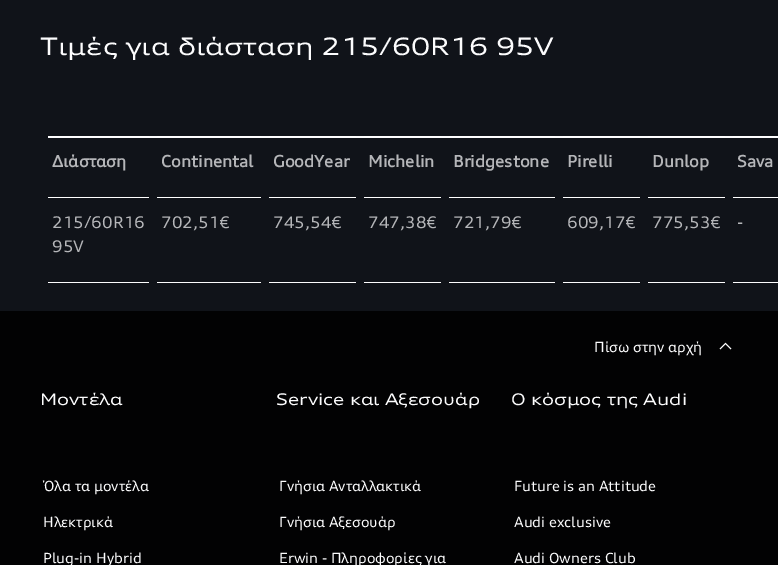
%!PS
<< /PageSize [778 565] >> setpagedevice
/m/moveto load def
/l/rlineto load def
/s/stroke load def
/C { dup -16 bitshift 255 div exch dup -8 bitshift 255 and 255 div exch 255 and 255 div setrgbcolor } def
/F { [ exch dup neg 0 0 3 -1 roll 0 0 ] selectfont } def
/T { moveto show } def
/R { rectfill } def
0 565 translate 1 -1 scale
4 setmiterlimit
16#101319 C
0 0 778 565 R
/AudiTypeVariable-Regular 24 F
16#FCFCFD C
(Τιμές για διάσταση 215/60R16 95V) 40 55 T
48 136 730 2 R
16#FFFFFF C
48 136 101 1 R
48 197 101 1 R
/AudiTypeVariable-Bold 16 F
16#B5B6B9 C
(Διάσταση) 52 167 T
16#FFFFFF C
157 136 104 1 R
157 197 104 1 R
16#B5B6B9 C
(Continental) 161 167 T
16#FFFFFF C
269 136 87 1 R
269 197 87 1 R
16#B5B6B9 C
(GoodYear) 273 167 T
16#FFFFFF C
364 136 77 1 R
364 197 77 1 R
16#B5B6B9 C
(Michelin) 368 167 T
16#FFFFFF C
449 136 106 1 R
449 197 106 1 R
16#B5B6B9 C
(Bridgestone) 453 167 T
16#FFFFFF C
563 136 77 1 R
563 197 77 1 R
16#B5B6B9 C
(Pirelli) 567 167 T
16#FFFFFF C
648 136 77 1 R
648 197 77 1 R
16#B5B6B9 C
(Dunlop) 652 167 T
16#FFFFFF C
733 136 45 1 R
733 197 45 1 R
16#B5B6B9 C
(Sava) 737 167 T
16#FCFCFD C
48 282 101 1 R
/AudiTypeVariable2-Regular 16 F
16#B5B6B9 C
(215/60R16) 52 228 T
(95V) 52 252 T
16#FCFCFD C
157 282 104 1 R
16#B5B6B9 C
(702,51€) 161 228 T
16#FCFCFD C
269 282 87 1 R
16#B5B6B9 C
(745,54€) 273 228 T
16#FCFCFD C
364 282 77 1 R
16#B5B6B9 C
(747,38€) 368 228 T
16#FCFCFD C
449 282 106 1 R
16#B5B6B9 C
(721,79€) 453 228 T
16#FCFCFD C
563 282 77 1 R
16#B5B6B9 C
(609,17€) 567 228 T
16#FCFCFD C
648 282 77 1 R
16#B5B6B9 C
(775,53€) 652 228 T
16#FCFCFD C
733 282 45 1 R
16#B5B6B9 C
(-) 737 228 T
16#020203 C
0 311 778 254 R
/AudiTypeVariable2-Regular 14 F
16#FCFCFD C
(Πίσω στην αρχή) 594 352 T
731 349 m -5.5 -5.5 l -5.5 5.5 l s
/AudiTypeVariable-Regular 16 F
(Μοντέλα) 40 405 T
/AudiTypeVariable2-Regular 14 F
(Όλα τα μοντέλα) 43 491 T
(Ηλεκτρικά) 43 527 T
(Plug-in Hybrid) 43 563 T
/AudiTypeVariable-Regular 16 F
(Service και Αξεσουάρ) 276 405 T
/AudiTypeVariable2-Regular 14 F
(Γνήσια Ανταλλακτικά) 279 491 T
(Γνήσια Αξεσουάρ) 279 527 T
(Erwin - Πληροφορίες για) 279 563 T
/AudiTypeVariable-Regular 16 F
(Ο κόσμος της Audi) 511 405 T
/AudiTypeVariable2-Regular 14 F
(Future is an Attitude) 514 491 T
(Audi exclusive) 514 527 T
(Audi Owners Club) 514 563 T
showpage
